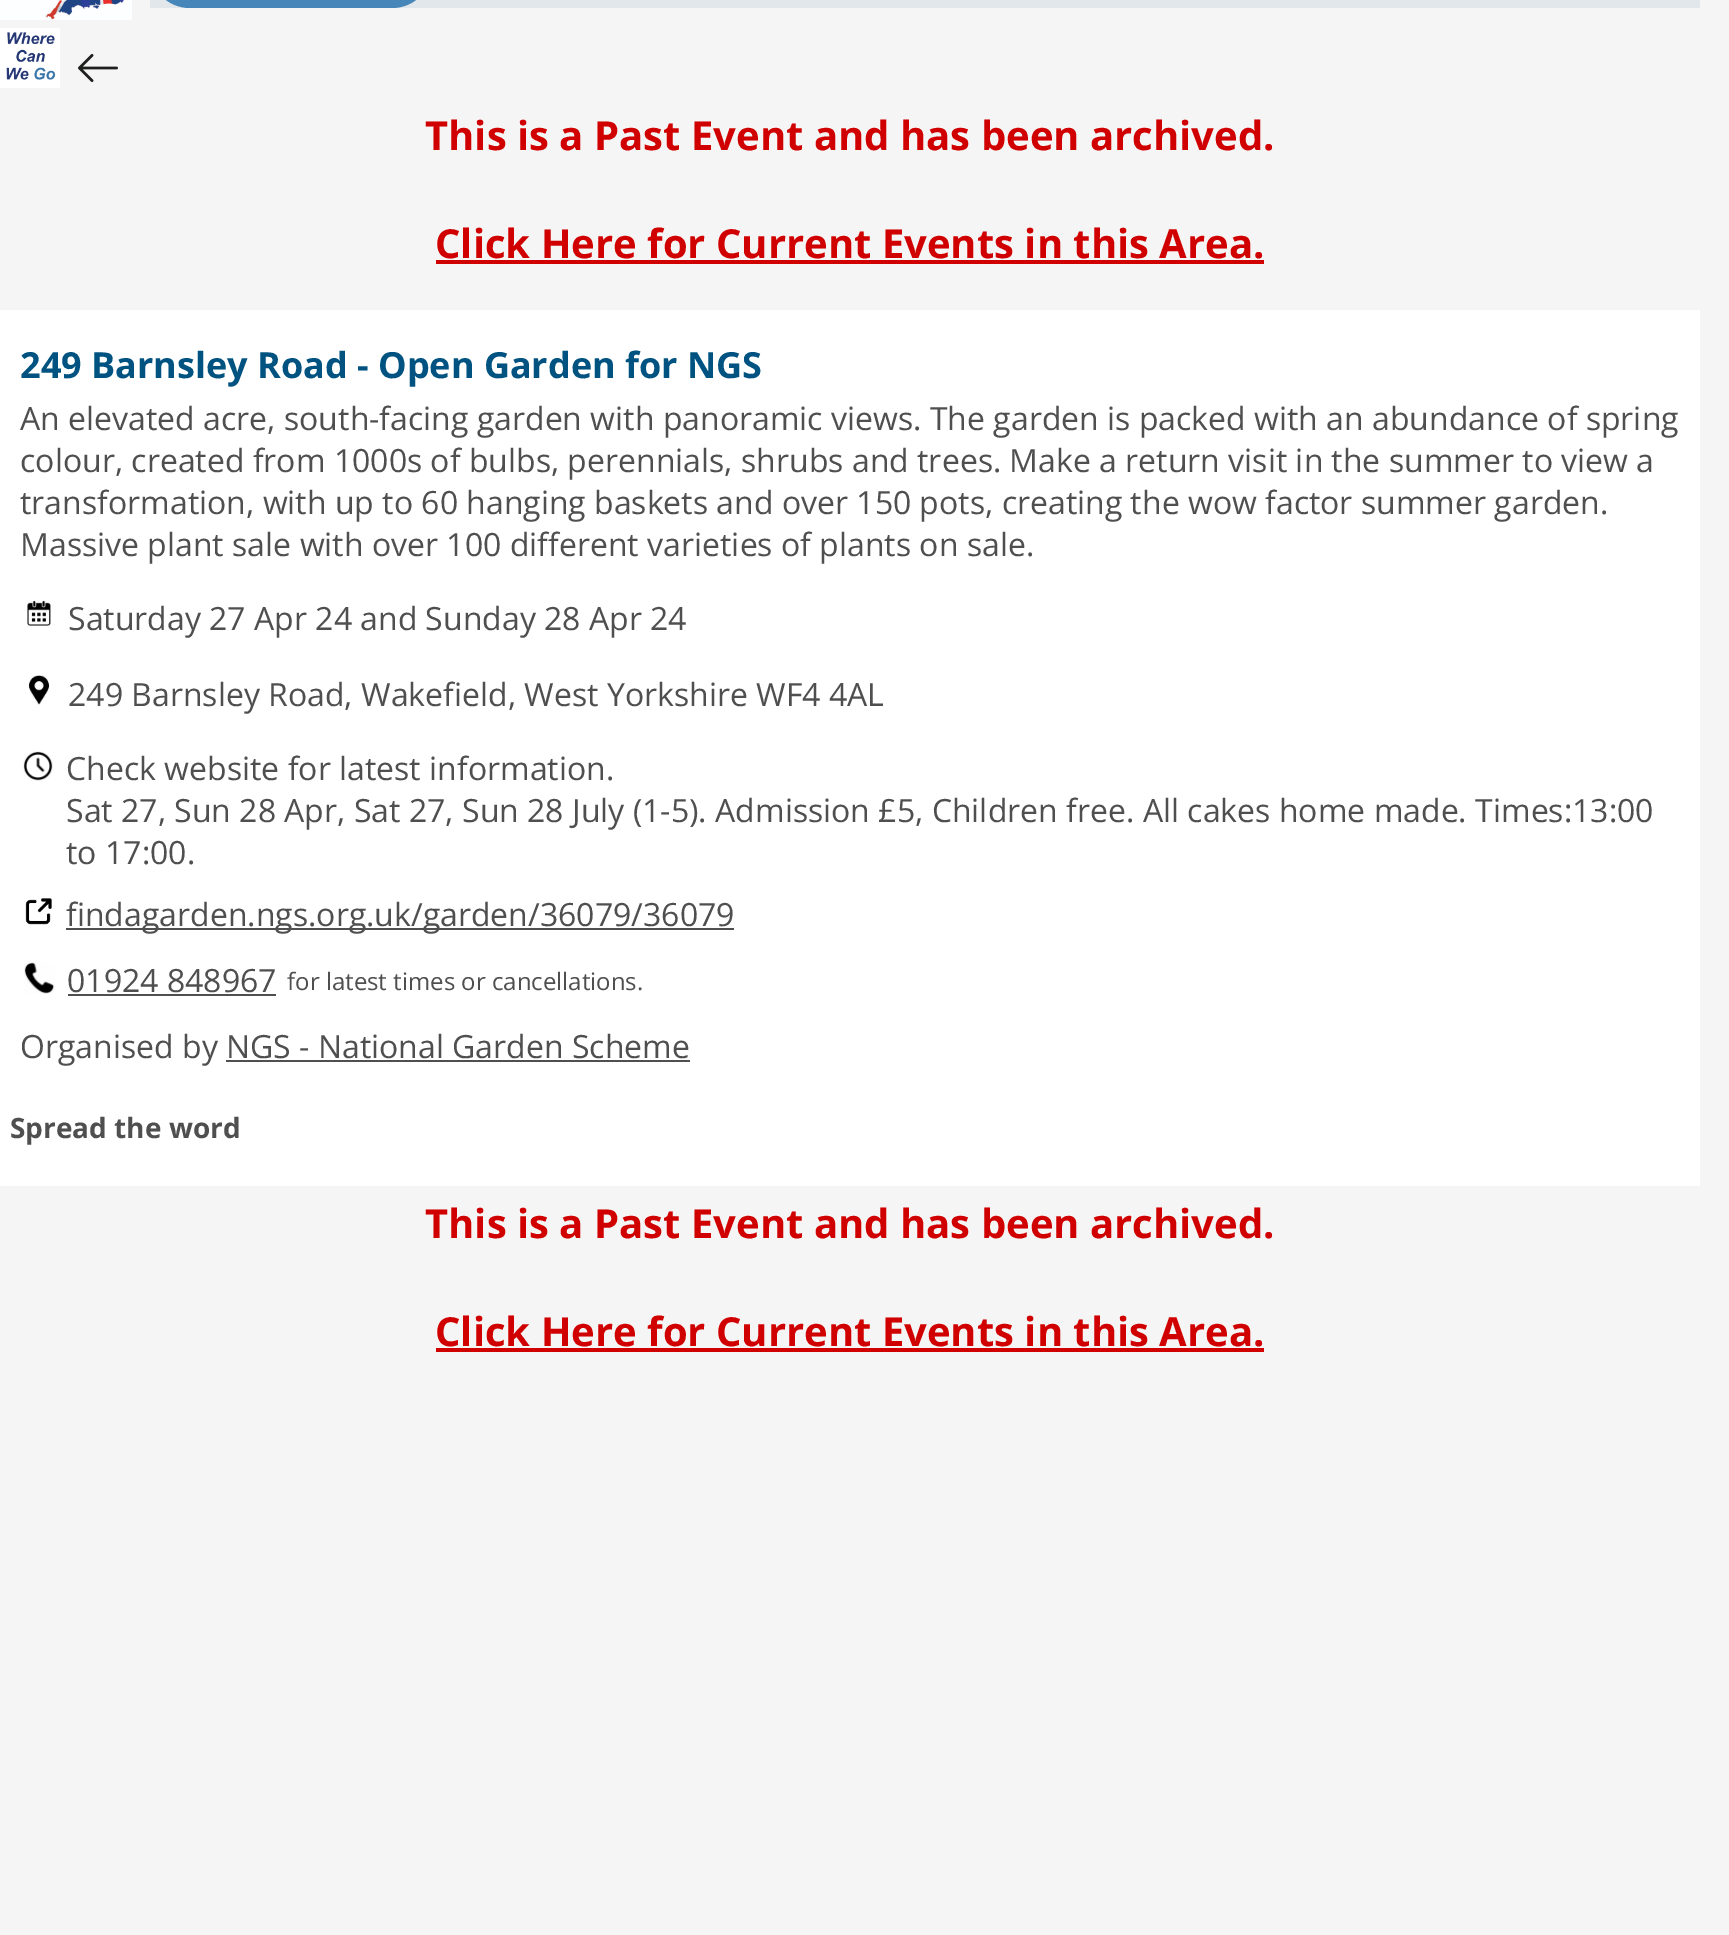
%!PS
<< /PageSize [1729 1935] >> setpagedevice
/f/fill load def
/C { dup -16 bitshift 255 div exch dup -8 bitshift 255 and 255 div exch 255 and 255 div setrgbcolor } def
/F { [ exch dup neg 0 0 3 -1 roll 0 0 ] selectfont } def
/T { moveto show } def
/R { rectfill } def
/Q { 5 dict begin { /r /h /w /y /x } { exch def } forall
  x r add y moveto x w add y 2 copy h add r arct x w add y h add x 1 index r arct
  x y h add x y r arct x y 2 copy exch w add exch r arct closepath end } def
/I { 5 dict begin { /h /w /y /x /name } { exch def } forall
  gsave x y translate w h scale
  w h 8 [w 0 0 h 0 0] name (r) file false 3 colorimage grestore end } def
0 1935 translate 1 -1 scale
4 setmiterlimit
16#F5F5F5 C
0 0 1729 1935 R
16#E1E7EB C
150 0 1550 8 R
16#4786B9 C
150 -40 282 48 40 Q f
(1.rgb) 0 0 132 20 I
(2.rgb) 0 28 60 60 I
(3.rgb) 78 54 40 28 I
/OpenSans-Bold 40 F
16#D00000 C
(This is a Past Event and has been archived.) 425 150 T
(Click Here for Current Events in this Area.) 435 258 T
436 260 828 4 R
16#FFFFFF C
0 310 1700 876 R
/OpenSans-Bold 36 F
16#005380 C
(249 Barnsley Road - Open Garden for NGS) 20 378 T
/OpenSans-Regular 32 F
16#4F4F4F C
(An elevated acre, south-facing garden with panoramic views. The garden is packed with an abundance of spring) 20 430 T
(colour, created from 1000s of bulbs, perennials, shrubs and trees. Make a return visit in the summer to view a) 20 472 T
(transformation, with up to 60 hanging baskets and over 150 pots, creating the wow factor summer garden.) 20 514 T
(Massive plant sale with over 100 different varieties of plants on sale.) 20 556 T
(4.rgb) 27 600 24 26 I
(Saturday 27 Apr 24 and Sunday 28 Apr 24) 68 630 T
(5.rgb) 28 675 22 30 I
(249 Barnsley Road, Wakefield, West Yorkshire WF4 4AL) 68 706 T
(6.rgb) 23 751 30 30 I
(Check website for latest information.) 66 780 T
(Sat 27, Sun 28 Apr, Sat 27, Sun 28 July \(1-5\). Admission £5, Children free. All cakes home made. Times:13:00) 66 822 T
(to 17:00.) 66 864 T
(7.rgb) 25 898 27 27 I
66 928 668 2 R
(findagarden.ngs.org.uk/garden/36079/36079) 66 926 T
(8.rgb) 24 962 31 32 I
(01924 848967) 67 992 T
68 994 208 2 R
/OpenSans-Regular 24 F
(for latest times or cancellations.) 287 990 T
/OpenSans-Regular 32 F
(Organised by NGS - National Garden Scheme) 20 1058 T
226 1060 464 2 R
/OpenSans-Bold 28 F
(Spread the word) 10 1138 T
/OpenSans-Bold 40 F
16#D00000 C
(This is a Past Event and has been archived.) 425 1238 T
(Click Here for Current Events in this Area.) 435 1346 T
436 1348 828 4 R
showpage
